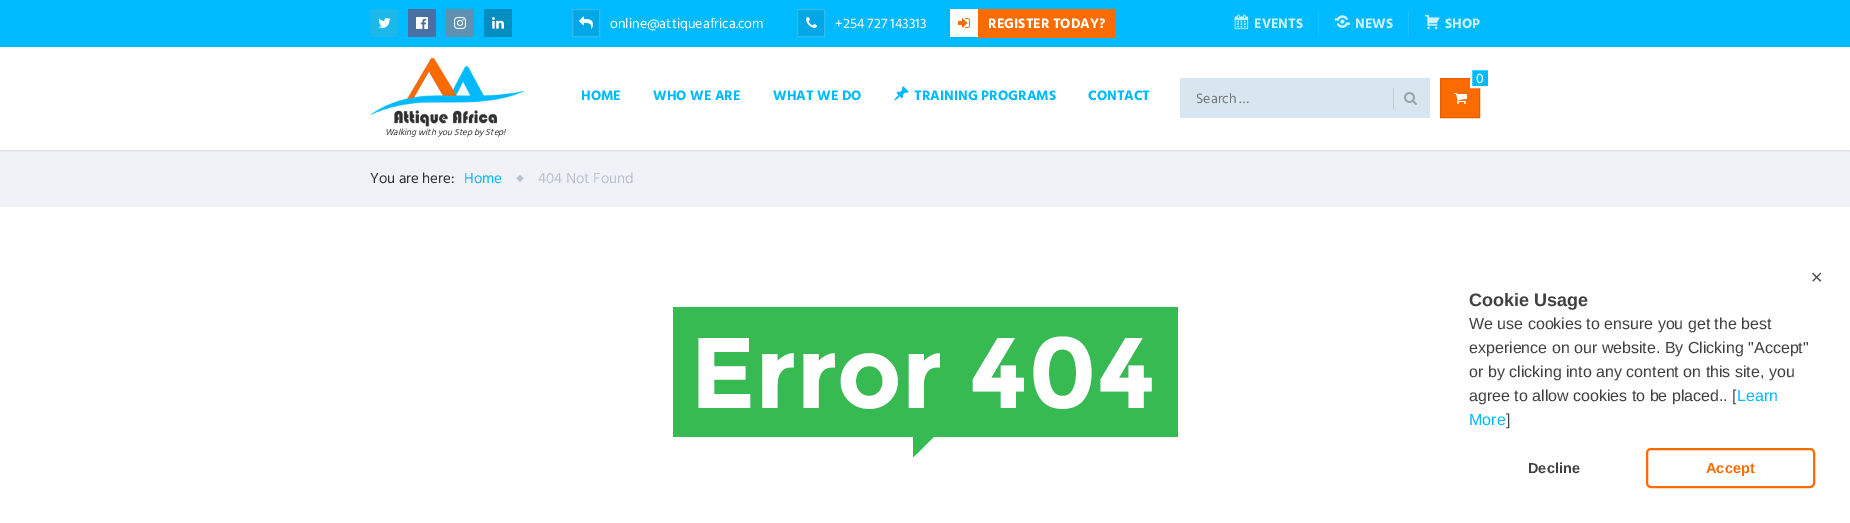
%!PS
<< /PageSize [1850 523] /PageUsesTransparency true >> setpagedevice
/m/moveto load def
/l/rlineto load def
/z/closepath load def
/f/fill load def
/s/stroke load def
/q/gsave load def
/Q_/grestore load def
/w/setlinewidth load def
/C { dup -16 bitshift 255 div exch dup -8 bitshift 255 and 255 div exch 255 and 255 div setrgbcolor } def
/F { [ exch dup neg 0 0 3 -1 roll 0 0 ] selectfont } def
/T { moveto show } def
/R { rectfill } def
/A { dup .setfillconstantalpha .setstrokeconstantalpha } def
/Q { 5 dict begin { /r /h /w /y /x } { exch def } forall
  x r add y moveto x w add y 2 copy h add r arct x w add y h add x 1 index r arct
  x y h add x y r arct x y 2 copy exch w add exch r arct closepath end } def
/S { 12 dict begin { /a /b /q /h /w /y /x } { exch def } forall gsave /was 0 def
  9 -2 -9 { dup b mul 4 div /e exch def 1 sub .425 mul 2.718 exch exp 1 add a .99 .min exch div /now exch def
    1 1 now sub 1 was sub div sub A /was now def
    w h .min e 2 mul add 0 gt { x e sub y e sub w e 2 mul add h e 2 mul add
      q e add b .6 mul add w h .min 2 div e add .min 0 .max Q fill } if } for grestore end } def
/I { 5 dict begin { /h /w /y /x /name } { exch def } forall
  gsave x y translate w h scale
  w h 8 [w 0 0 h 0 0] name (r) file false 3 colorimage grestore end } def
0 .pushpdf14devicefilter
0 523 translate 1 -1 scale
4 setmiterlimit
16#FFFFFF C
0 0 1850 523 R
16#00BAFF C
0 0 1850 47 R
16#1CB7EB C
370 9 28 28 R
(1.rgb) 378 18 13 10 I
16#496FA4 C
408 9 28 28 R
(2.rgb) 416 17 12 12 I
16#5F92B2 C
446 9 28 28 R
(3.rgb) 454 17 12 12 I
16#008EC1 C
484 9 28 28 R
(4.rgb) 492 17 12 12 I
16#00A7E6 C
572.5 9.5 m 27 0 l 0 27 l -27 0 l z q f Q_
16#33B9EB C
s
(5.rgb) 579 16 14 13 I
/HindSiliguri-Regular 14 F
16#FFFFFF C
(online@attiqueafrica.com) 610 28 T
16#00A7E6 C
797.5 9.5 m 27 0 l 0 27 l -27 0 l z q f Q_
16#33B9EB C
s
(6.rgb) 806 17 11 11 I
16#FFFFFF C
(+254 727 143313) 835 28 T
950 9 28 28 R
(7.rgb) 958 18 12 10 I
16#FC6B00 C
978 9 137 29 R
/HindSiliguri-Bold 14 F
16#FFFFFF C
(REGISTER TODAY?) 988 28 T
16#1AC1FF C
1318 11 1 25 R
(8.rgb) 1234 14 15 16 I
16#CCF1FF C
(EVENTS) 1254 28 T
16#1AC1FF C
1408 11 1 25 R
(9.rgb) 1334 15 16 13 I
16#CCF1FF C
(NEWS) 1355 28 T
(10.rgb) 1424 14 16 16 I
(SHOP) 1445 28 T
16#F1F2F8 C
0 150 1850 57 R
q
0 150 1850 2 rectclip
16#000000 C
0 48 1850 103 0 1 .1 S
Q_
/HindVadodara-Bold 14 F
16#00BAFF C
(HOME) 581 100 T
(WHO WE ARE) 653 100 T
(WHAT WE DO) 773 100 T
(11.rgb) 894 86 15 15 I
(TRAINING PROGRAMS) 914 100 T
(CONTACT) 1088 100 T
16#FC6B00 C
1440.5 78.5 m 39 0 l 0 39 l -39 0 l z q f Q_
16#E36000 C
s
16#00BAFF C
1471 69 m 18 0 l 0 18 l -18 0 l z q f Q_
16#FFFFFF C
2 w
s
/HindVadodara-Regular 14 F
(0) 1476 83 T
(12.rgb) 1454 93 13 11 I
16#D8E7EF C
1180 78 250 40 R
/HindSiliguri-Regular 14 F
16#757575 C
(Search …) 1196 103 T
(13.rgb) 1404 92 13 13 I
16#BECBD2 C
1393 88 1 21 R
(14.rgb) 370 57 155 70 I
/HindSiliguri-Italic 9 F
16#2D2E2F C
(Walking with you Step by Step!) 385 135 T
/HindSiliguri-Regular 15 F
(You are here:) 370 183 T
16#00BAFF C
(Home) 464 183 T
16#B9C1CF C
520 175 m 3.5 3.5 l -3.5 3.5 l -3.5 -3.5 l z f
(404 Not Found) 538 183 T
(15.rgb) 673 307 505 150 I
/DejaVuSans-Regular 16 F
16#535353 C
(✕) 1810 283 T
/LiberationSans-Bold 18 F
16#404040 C
(Cookie Usage) 1469 306 T
/LiberationSans-Regular 16 F
(We use cookies to ensure you get the best) 1469 329 T
(experience on our website. By Clicking "Accept") 1469 353 T
(or by clicking into any content on this site, you) 1469 377 T
(agree to allow cookies to be placed.. [) 1469 401 T
16#00BAFF C
(Learn) 1737 401 T
(More) 1469 425 T
16#404040 C
(]) 1506 425 T
/LiberationSans-Bold 14.5 F
(Decline) 1528 473 T
16#FC6B00 C
1647 449 167 38 4 Q s
(Accept) 1706 473 T
.poppdf14devicefilter showpage
